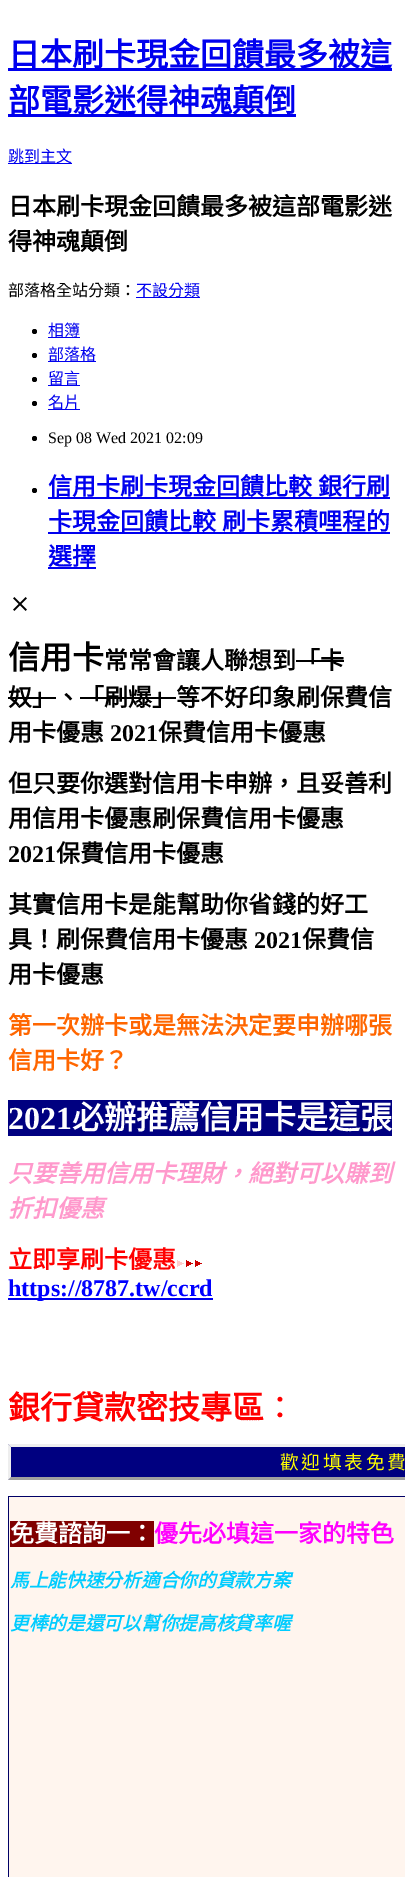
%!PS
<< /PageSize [405 1877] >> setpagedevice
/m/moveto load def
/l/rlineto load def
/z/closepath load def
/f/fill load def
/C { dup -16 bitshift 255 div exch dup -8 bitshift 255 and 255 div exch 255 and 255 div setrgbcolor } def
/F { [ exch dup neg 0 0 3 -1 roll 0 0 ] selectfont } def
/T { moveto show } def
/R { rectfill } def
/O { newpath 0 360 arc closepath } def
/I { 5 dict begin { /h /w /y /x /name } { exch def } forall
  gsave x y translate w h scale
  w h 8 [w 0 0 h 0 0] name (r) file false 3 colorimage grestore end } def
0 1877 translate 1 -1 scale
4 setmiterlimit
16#FFFFFF C
0 0 405 1877 R
16#0000EE C
8 68 384 3 R
/NotoSansCJKTC-Bold 32 F
(日本刷卡現金回饋最多被這) 8 66 T
8 114 288 3 R
(部電影迷得神魂顛倒) 8 112 T
8 163 64 1 R
/NotoSansCJKTC-Regular 16 F
(跳到主文) 8 162 T
/NotoSansCJKTC-Bold 24 F
16#000000 C
(日本刷卡現金回饋最多被這部電影迷) 8 215 T
(得神魂顛倒) 8 250 T
/NotoSansCJKTC-Regular 16 F
(部落格全站分類：) 8 296 T
16#0000EE C
136 297 64 1 R
(不設分類) 136 296 T
16#000000 C
34.5 331.5 2.5 O f
16#0000EE C
48 337 32 1 R
(相簿) 48 336 T
16#000000 C
34.5 355.5 2.5 O f
16#0000EE C
48 361 48 1 R
(部落格) 48 360 T
16#000000 C
34.5 379.5 2.5 O f
16#0000EE C
48 385 32 1 R
(留言) 48 384 T
16#000000 C
34.5 403.5 2.5 O f
16#0000EE C
48 409 32 1 R
(名片) 48 408 T
16#000000 C
34.5 438.5 2.5 O f
/LiberationSerif-Regular 16 F
(Sep 08 Wed 2021 02:09) 48 443 T
34.5 490.5 2.5 O f
16#0000EE C
48 497 342 2 R
/NotoSansCJKTC-Bold 24 F
48 495 m 1 0 32 (信用卡刷卡現金回饋比較 銀行刷) widthshow
48 532 342 2 R
48 530 m 1 0 32 (卡現金回饋比較 刷卡累積哩程的) widthshow
(選擇) 48 565 T
48 567 48 2 R
(1.rgb) 13 597 14 14 I
/NotoSansCJKTC-Bold 32 F
16#000000 C
(信用卡) 8 669 T
/NotoSansCJKTC-Bold 24 F
(常常會讓人聯想到「卡) 104 669 T
296 660 48 2 R
(奴」、「刷爆」等不好印象刷保費信) 8 706 T
8 697 48 2 R
80 697 96 2 R
(用卡優惠) 8 741 T
/LiberationSerif-Bold 24 F
(2021) 110 741 T
/NotoSansCJKTC-Bold 24 F
(保費信用卡優惠) 158 741 T
(但只要你選對信用卡申辦，且妥善利) 8 792 T
(用信用卡優惠刷保費信用卡優惠) 8 827 T
/LiberationSerif-Bold 24 F
(2021) 8 862 T
/NotoSansCJKTC-Bold 24 F
(保費信用卡優惠) 56 862 T
(其實信用卡是能幫助你省錢的好工) 8 913 T
(具！刷保費信用卡優惠) 8 948 T
/LiberationSerif-Bold 24 F
(2021) 254 948 T
/NotoSansCJKTC-Bold 24 F
(保費信) 302 948 T
(用卡優惠) 8 983 T
16#FF6600 C
(第一次辦卡或是無法決定要申辦哪張) 8 1034 T
(信用卡好？) 8 1069 T
16#000080 C
8 1100 384 36 R
/LiberationSerif-Bold 32 F
16#FFFFFF C
(2021) 8 1129 T
/NotoSansCJKTC-Bold 32 F
(必辦推薦信用卡是這張) 72 1129 T
/NotoSansCJKTC-BoldItalic 24 F
16#FF99CC C
(只要善用信用卡理財，絕對可以賺到) 8 1182 T
(折扣優惠) 8 1217 T
/NotoSansCJKTC-Bold 24 F
16#FF0000 C
(立即享刷卡優惠) 8 1268 T
(2.rgb) 177 1260 25 7 I
16#0000EE C
8 1298 205 2 R
/LiberationSerif-Bold 24 F
16#0000FF C
(https://8787.tw/ccrd) 8 1296 T
/NotoSansCJKTC-Bold 32 F
16#FF0000 C
(銀行貸款密技專區) 8 1419 T
/NotoSansCJKTC-Regular 32 F
(：) 264 1419 T
16#000080 C
8 1444 397 36 R
16#EEEEEE C
8 1444 m 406 0 l -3 3 l -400 0 l z f
16#9F9F9F C
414 1480 m -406 0 l 3 -3 l 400 0 l z f
16#EEEEEE C
8 1480 m 0 -36 l 3 3 l 0 30 l z f
/NotoSansCJKTC-Regular 18.7 F
16#FFFF00 C
280 1469 m 2.75 0 (歡迎填表免費) ashow
16#FFF5EE C
9 1497 396 380 R
16#000066 C
8 1496 397 1 R
8 1496 1 381 R
16#800000 C
10 1521 144 26 R
/NotoSansCJKTC-Bold 24 F
16#FFFFFF C
(免費諮詢一：) 10 1542 T
16#FF00FF C
(優先必填這一家的特色) 154 1542 T
/NotoSansCJKTC-BoldItalic 18.7 F
16#00CCFF C
(馬上能快速分析適合你的貸款方案) 10 1587 T
(更棒的是還可以幫你提高核貸率喔) 10 1630 T
showpage
